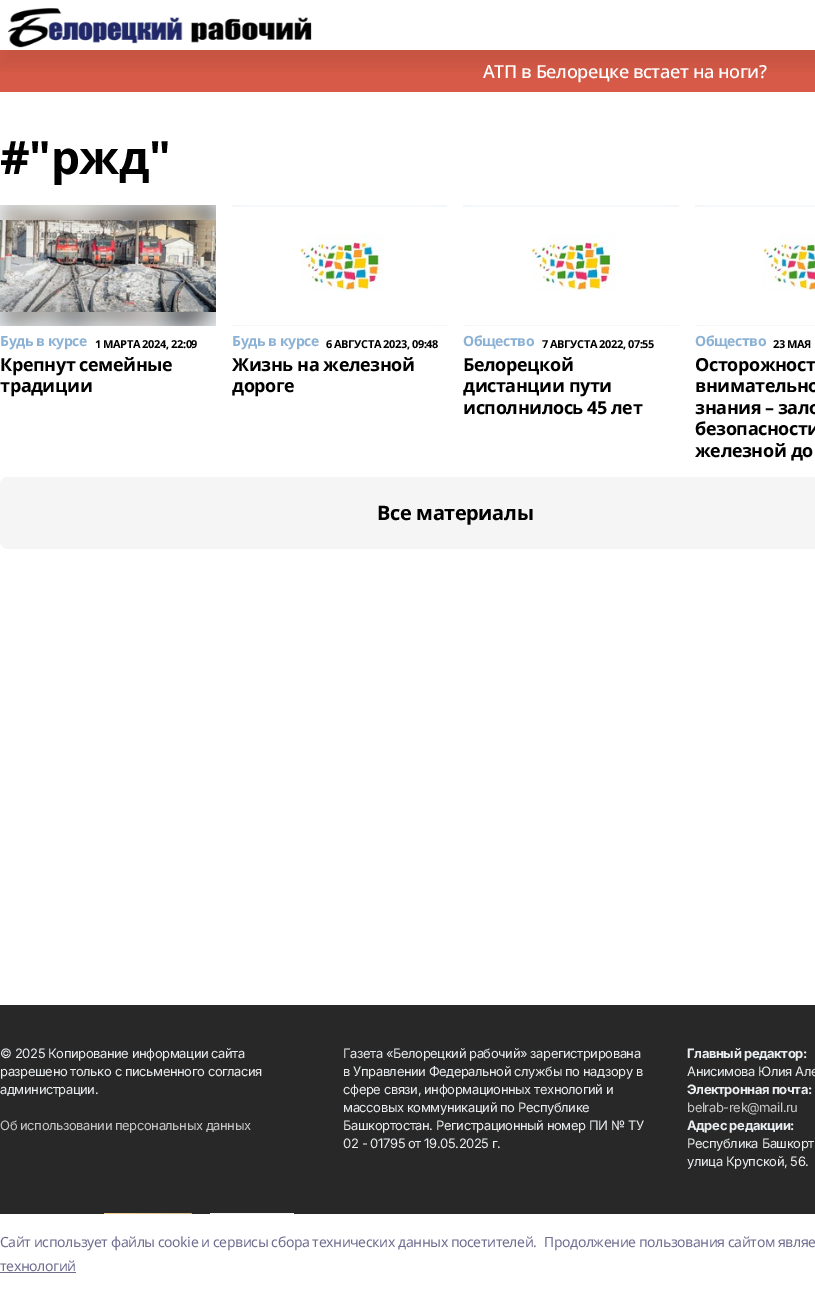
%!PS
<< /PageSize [815 1294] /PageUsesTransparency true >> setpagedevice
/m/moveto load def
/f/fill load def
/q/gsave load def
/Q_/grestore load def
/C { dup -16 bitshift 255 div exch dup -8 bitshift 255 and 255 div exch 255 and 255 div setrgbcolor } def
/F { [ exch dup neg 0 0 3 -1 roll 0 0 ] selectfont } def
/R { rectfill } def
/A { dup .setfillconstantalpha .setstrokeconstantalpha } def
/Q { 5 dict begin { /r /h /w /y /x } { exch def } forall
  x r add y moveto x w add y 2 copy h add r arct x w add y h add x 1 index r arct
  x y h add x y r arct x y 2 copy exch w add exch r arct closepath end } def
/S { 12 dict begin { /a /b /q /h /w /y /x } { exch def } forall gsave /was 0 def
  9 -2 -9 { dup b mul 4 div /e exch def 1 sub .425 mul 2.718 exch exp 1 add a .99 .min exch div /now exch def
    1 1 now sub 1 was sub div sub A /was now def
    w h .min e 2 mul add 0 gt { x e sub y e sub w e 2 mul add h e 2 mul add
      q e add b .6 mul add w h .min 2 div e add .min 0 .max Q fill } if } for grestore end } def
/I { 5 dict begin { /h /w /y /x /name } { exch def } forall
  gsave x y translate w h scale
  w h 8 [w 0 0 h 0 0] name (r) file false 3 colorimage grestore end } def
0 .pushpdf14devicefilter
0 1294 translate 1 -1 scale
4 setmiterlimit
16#FFFFFF C
0 0 815 1294 R
16#D65A47 C
0 50 815 42 R
q
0 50 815 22 rectclip
16#000000 C
0 15 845 50 0 10 .08 S
Q_
(1.rgb) 8 8 304 40 I
/NotoSans-Medium 18 F
16#FFFFFF C
483 78 m -.42 0 (АТП в Белорецке встает на ноги?) ashow
/NotoSans-Bold 46 F
16#000000 C
0 174 m -.42 0 (#"ржд") ashow
16#EDF2F7 C
0 205 216 121 R
(2.rgb) 0 205 216 121 I
(3.rgb) 0 220 216 92 I
/NotoSans-Bold 14 F
16#8BB1D4 C
0 346 m -.42 0 (Будь в курсе) ashow
/NotoSans-Bold 11 F
16#000000 C
95 348 m -.42 0 (1 МАРТА 2024, 22:09) ashow
/NotoSans-Bold 18 F
0 371 m -.42 0 (Крепнут семейные) ashow
0 392 m -.42 0 (традиции) ashow
16#EDF2F7 C
232 205 215 121 R
(4.rgb) 232 205 215 121 I
(5.rgb) 232 207 215 118 I
/NotoSans-Bold 14 F
16#8BB1D4 C
232 346 m -.42 0 (Будь в курсе) ashow
/NotoSans-Bold 11 F
16#000000 C
326 348 m -.42 0 (6 АВГУСТА 2023, 09:48) ashow
/NotoSans-Bold 18 F
232 371 m -.42 0 (Жизнь на железной) ashow
232 392 m -.42 0 (дороге) ashow
16#EDF2F7 C
463 205 216 121 R
(6.rgb) 463 205 216 121 I
(7.rgb) 463 207 216 118 I
/NotoSans-Bold 14 F
16#8BB1D4 C
463 346 m -.42 0 (Общество) ashow
/NotoSans-Bold 11 F
16#000000 C
542 348 m -.42 0 (7 АВГУСТА 2022, 07:55) ashow
/NotoSans-Bold 18 F
463 371 m -.42 0 (Белорецкой) ashow
463 392 m -.42 0 (дистанции пути) ashow
463 414 m -.42 0 (исполнилось 45 лет) ashow
16#EDF2F7 C
695 205 120 121 R
(8.rgb) 695 205 120 121 I
(9.rgb) 695 207 120 118 I
/NotoSans-Bold 14 F
16#8BB1D4 C
695 346 m -.42 0 (Общество) ashow
/NotoSans-Bold 11 F
16#000000 C
773 348 m -.42 0 (23 МАЯ) ashow
/NotoSans-Bold 18 F
695 371 m -.42 0 (Осторожност) ashow
695 392 m -.42 0 (внимательно) ashow
695 414 m -.42 0 (знания – зало) ashow
695 435 m -.42 0 (безопасности) ashow
695 457 m -.42 0 (железной до) ashow
16#F5F5F5 C
0 477 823 72 8 Q f
/NotoSans-Bold 20 F
16#000000 C
377 520 m -.42 0 (Все материалы) ashow
16#282828 C
0 1005 815 209 R
/Inter-Regular 13 F
16#ECEFF1 C
0 1058 m -.42 0 (© 2025 Копирование информации сайта) ashow
0 1076 m -.42 0 (разрешено только с письменного согласия) ashow
0 1094 m -.42 0 (администрации.) ashow
16#C9C9C9 C
0 1130 m -.42 0 (Об использовании персональных данных) ashow
16#ECEFF1 C
343 1058 m -.42 0 (Газета «Белорецкий рабочий» зарегистрирована) ashow
343 1076 m -.42 0 (в Управлении Федеральной службы по надзору в) ashow
343 1094 m -.42 0 (сфере связи, информационных технологий и) ashow
343 1112 m -.42 0 (массовых коммуникаций по Республике) ashow
343 1130 m -.42 0 (Башкортостан. Регистрационный номер ПИ № ТУ) ashow
343 1148 m -.42 0 (02 - 01795 от 19.05.2025 г.) ashow
/Inter-Bold 13 F
687 1058 m -.42 0 (Главный редактор:) ashow
/Inter-Regular 13 F
687 1076 m -.42 0 (Анисимова Юлия Але) ashow
/Inter-Bold 13 F
687 1094 m -.42 0 (Электронная почта:) ashow
/Inter-Regular 13 F
16#C9C9C9 C
687 1112 m -.42 0 (belrab-rek@mail.ru) ashow
/Inter-Bold 13 F
16#ECEFF1 C
687 1130 m -.42 0 (Адрес редакции:) ashow
/Inter-Regular 13 F
687 1148 m -.42 0 (Республика Башкорт) ashow
687 1166 m -.42 0 (улица Крупской, 56.) ashow
(10.rgb) 104 1213 88 1 I
(11.rgb) 210 1213 84 1 I
16#14142B C
0 1208 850 80 0 11.5 .08 S
16#FFFFFF C
0 1214 815 80 R
/NotoSans-Regular 14 F
16#6F6C90 C
0 1247 m -.42 0 (Cайт использует файлы cookie и сервисы сбора технических данных посетителей.) ashow
544 1247 m -.42 0 (Продолжение пользования сайтом являе) ashow
0 1271 m -.42 0 (технологий) ashow
0 1272 76 1 R
.poppdf14devicefilter showpage
